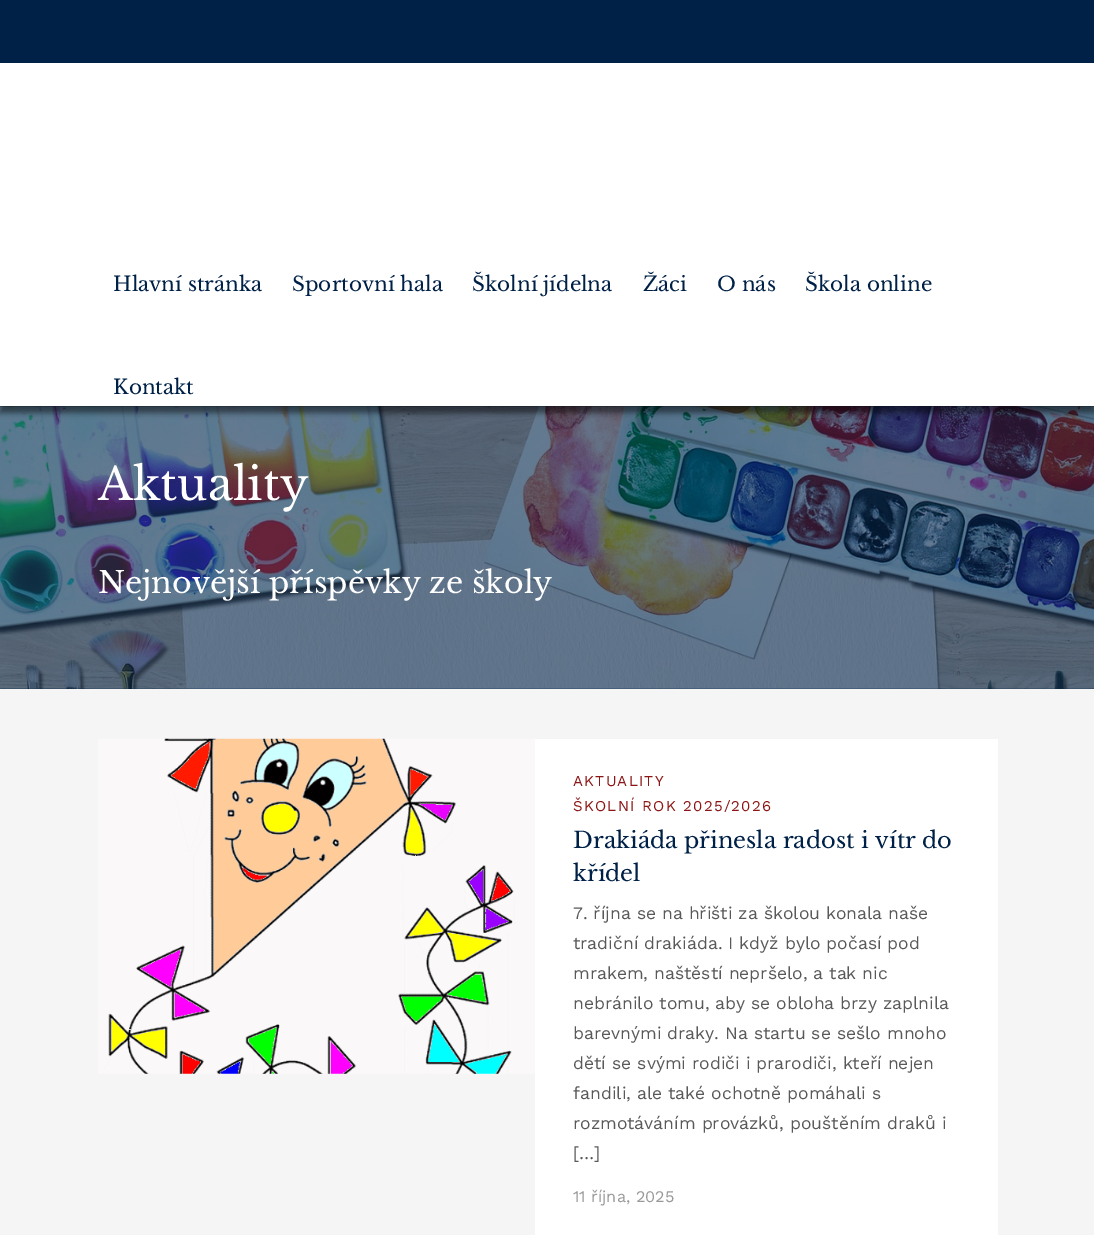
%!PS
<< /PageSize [1094 1235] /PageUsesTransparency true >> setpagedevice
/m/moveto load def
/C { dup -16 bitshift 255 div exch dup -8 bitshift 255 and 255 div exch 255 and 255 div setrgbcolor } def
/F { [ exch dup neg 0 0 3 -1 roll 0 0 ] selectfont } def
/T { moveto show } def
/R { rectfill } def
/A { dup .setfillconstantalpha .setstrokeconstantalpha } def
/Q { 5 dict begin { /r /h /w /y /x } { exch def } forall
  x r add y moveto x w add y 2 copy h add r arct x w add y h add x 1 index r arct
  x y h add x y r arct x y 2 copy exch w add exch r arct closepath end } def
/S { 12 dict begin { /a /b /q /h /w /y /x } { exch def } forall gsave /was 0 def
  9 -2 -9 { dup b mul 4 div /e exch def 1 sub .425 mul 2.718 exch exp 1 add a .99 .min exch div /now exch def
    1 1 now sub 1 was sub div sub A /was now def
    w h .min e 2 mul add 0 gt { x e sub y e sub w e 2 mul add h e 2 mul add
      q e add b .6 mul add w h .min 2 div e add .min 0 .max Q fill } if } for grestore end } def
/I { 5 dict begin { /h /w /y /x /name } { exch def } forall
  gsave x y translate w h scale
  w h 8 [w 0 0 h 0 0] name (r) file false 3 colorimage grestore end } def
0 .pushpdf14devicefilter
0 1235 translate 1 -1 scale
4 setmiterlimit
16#F5F5F5 C
0 0 1094 1235 R
(1.rgb) 0 406 1094 283 I
16#000000 C
0 6 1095 407 0 3 .5 S
16#FFFFFF C
0 63 1094 343 R
16#002147 C
0 0 1094 63 R
/LibreBaskerville-Regular 20 F
(Hlavní stránka) 113 291 T
(Sportovní hala) 292 291 T
(Školní jídelna) 472 291 T
(Žáci) 643 291 T
(O nás) 717 291 T
(Škola online) 805 291 T
(Kontakt) 113 394 T
/LibreBaskerville-Regular 45 F
16#FFFFFF C
(Aktuality) 98 500 T
/LibreBaskerville-Regular 30 F
(Nejnovější příspěvky ze školy) 98 593 T
(2.rgb) 98 738 437 336 I
535 739 463 496 R
/WorkSans-Regular 15 F
16#8C1515 C
573 786 m 1.25 0 (AKTUALITY) ashow
573 811 m 1.25 0 (ŠKOLNÍ ROK 2025/2026) ashow
/LibreBaskerville-Regular 22.5 F
16#002147 C
(Drakiáda přinesla radost i vítr do) 573 848 T
(křídel) 573 881 T
/WorkSans-Regular 17.5 F
16#595959 C
(7. října se na hřišti za školou konala naše) 573 919 T
(tradiční drakiáda. I když bylo počasí pod) 573 949 T
(mrakem, naštěstí nepršelo, a tak nic) 573 979 T
(nebránilo tomu, aby se obloha brzy zaplnila) 573 1009 T
(barevnými draky. Na startu se sešlo mnoho) 573 1039 T
(dětí se svými rodiči i prarodiči, kteří nejen) 573 1069 T
(fandili, ale také ochotně pomáhali s) 573 1099 T
(rozmotáváním provázků, pouštěním draků i) 573 1129 T
([…]) 573 1159 T
/WorkSans-Regular 16.25 F
16#999999 C
(11 října, 2025) 573 1202 T
.poppdf14devicefilter showpage
